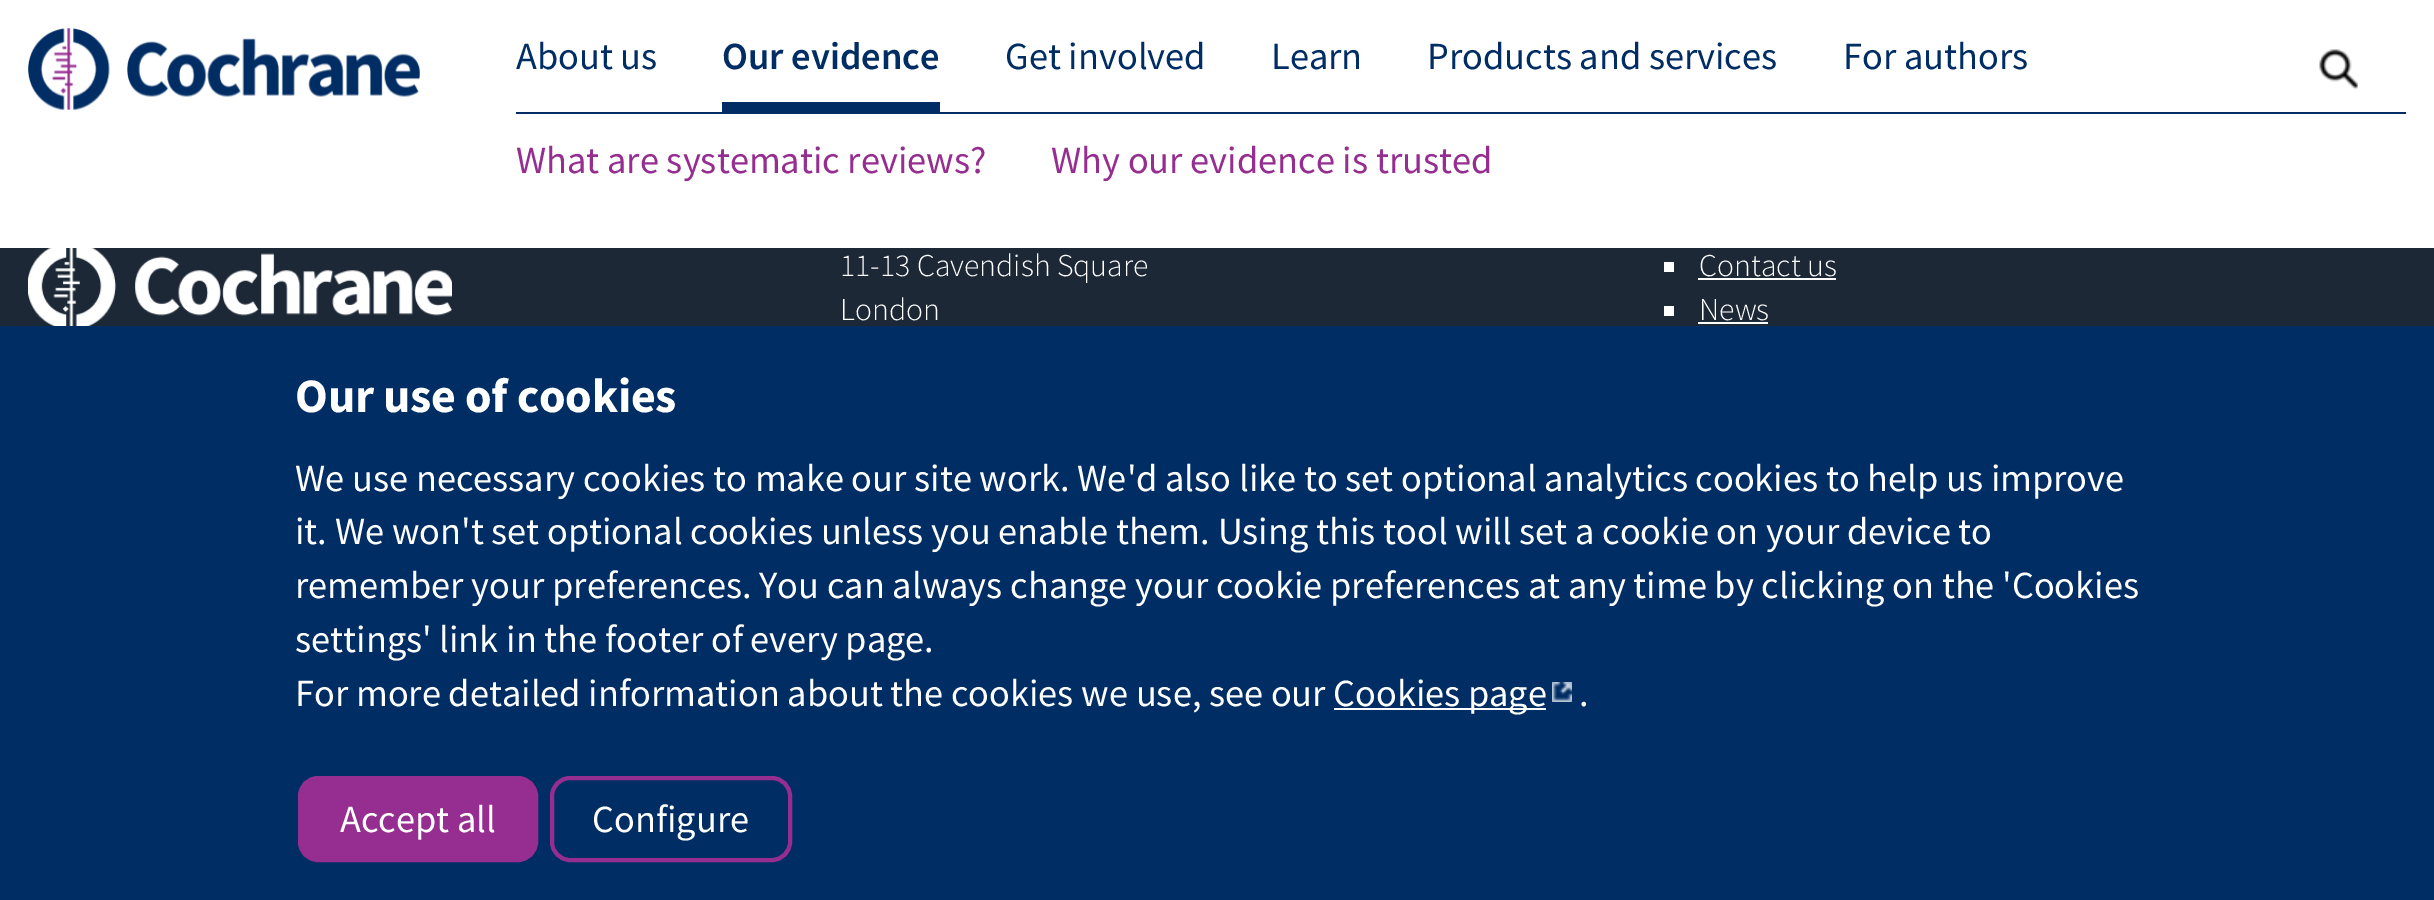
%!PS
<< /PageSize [2434 900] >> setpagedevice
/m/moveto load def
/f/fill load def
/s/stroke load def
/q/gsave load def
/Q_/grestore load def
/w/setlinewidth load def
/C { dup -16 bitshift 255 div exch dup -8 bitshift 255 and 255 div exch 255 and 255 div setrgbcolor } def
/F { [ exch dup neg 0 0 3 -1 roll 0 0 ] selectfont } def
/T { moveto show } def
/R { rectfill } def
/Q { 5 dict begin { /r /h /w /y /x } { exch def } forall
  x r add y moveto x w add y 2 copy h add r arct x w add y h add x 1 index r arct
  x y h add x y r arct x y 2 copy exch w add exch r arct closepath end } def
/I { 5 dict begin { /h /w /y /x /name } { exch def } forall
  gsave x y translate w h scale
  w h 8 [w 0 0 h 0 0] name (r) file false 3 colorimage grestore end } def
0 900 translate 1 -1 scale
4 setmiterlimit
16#1C2836 C
0 0 2434 900 R
16#FFFFFF C
0 0 2434 248 R
(1.rgb) 28 28 392 82 I
/SourceSansPro-Regular 38.4 F
16#002D64 C
(About us) 516 69 T
722 102 218 10 R
/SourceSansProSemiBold-SemiBold 38.4 F
(Our evidence) 722 69 T
516 112 1890 2 R
/SourceSansPro-Regular 38.4 F
16#962D91 C
(What are systematic reviews?) 516 173 T
(Why our evidence is trusted) 1051 173 T
16#002D64 C
(Get involved) 1005 69 T
(Learn) 1271 69 T
(Products and services) 1427 69 T
(For authors) 1843 69 T
(2.rgb) 2319 49 39 41 I
(3.rgb) 28 248 424 78 I
/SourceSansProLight-Light 31.75 F
16#FFFFFF C
(11-13 Cavendish Square) 840 276 T
(London) 840 320 T
1664 262 10 10 R
(Contact us) 1699 276 T
1698 278 138 2 R
1664 306 10 10 R
(News) 1699 320 T
1698 322 70 2 R
16#002D64 C
0 326 2434 574 R
/SourceSansPro-Bold 48 F
16#FFFFFF C
295 412 m -.25 0 (Our use of cookies) ashow
/SourceSansPro-Regular 38.4 F
(We use necessary cookies to make our site work. We'd also like to set optional analytics cookies to help us improve) 295 491 T
(it. We won't set optional cookies unless you enable them. Using this tool will set a cookie on your device to) 295 544 T
(remember your preferences. You can always change your cookie preferences at any time by clicking on the 'Cookies) 295 598 T
(settings' link in the footer of every page.) 295 652 T
(For more detailed information about the cookies we use, see our) 295 706 T
1334 708 212 2 R
(Cookies page) 1333 706 T
(4.rgb) 1552 682 20 20 I
(.) 1579 706 T
16#962D91 C
300 778 236 82 18 Q q f Q_
4 w
s
16#FFFFFF C
(Accept all) 340 832 T
16#962D91 C
552 778 238 82 18 Q s
16#FFFFFF C
(Configure) 592 832 T
showpage
